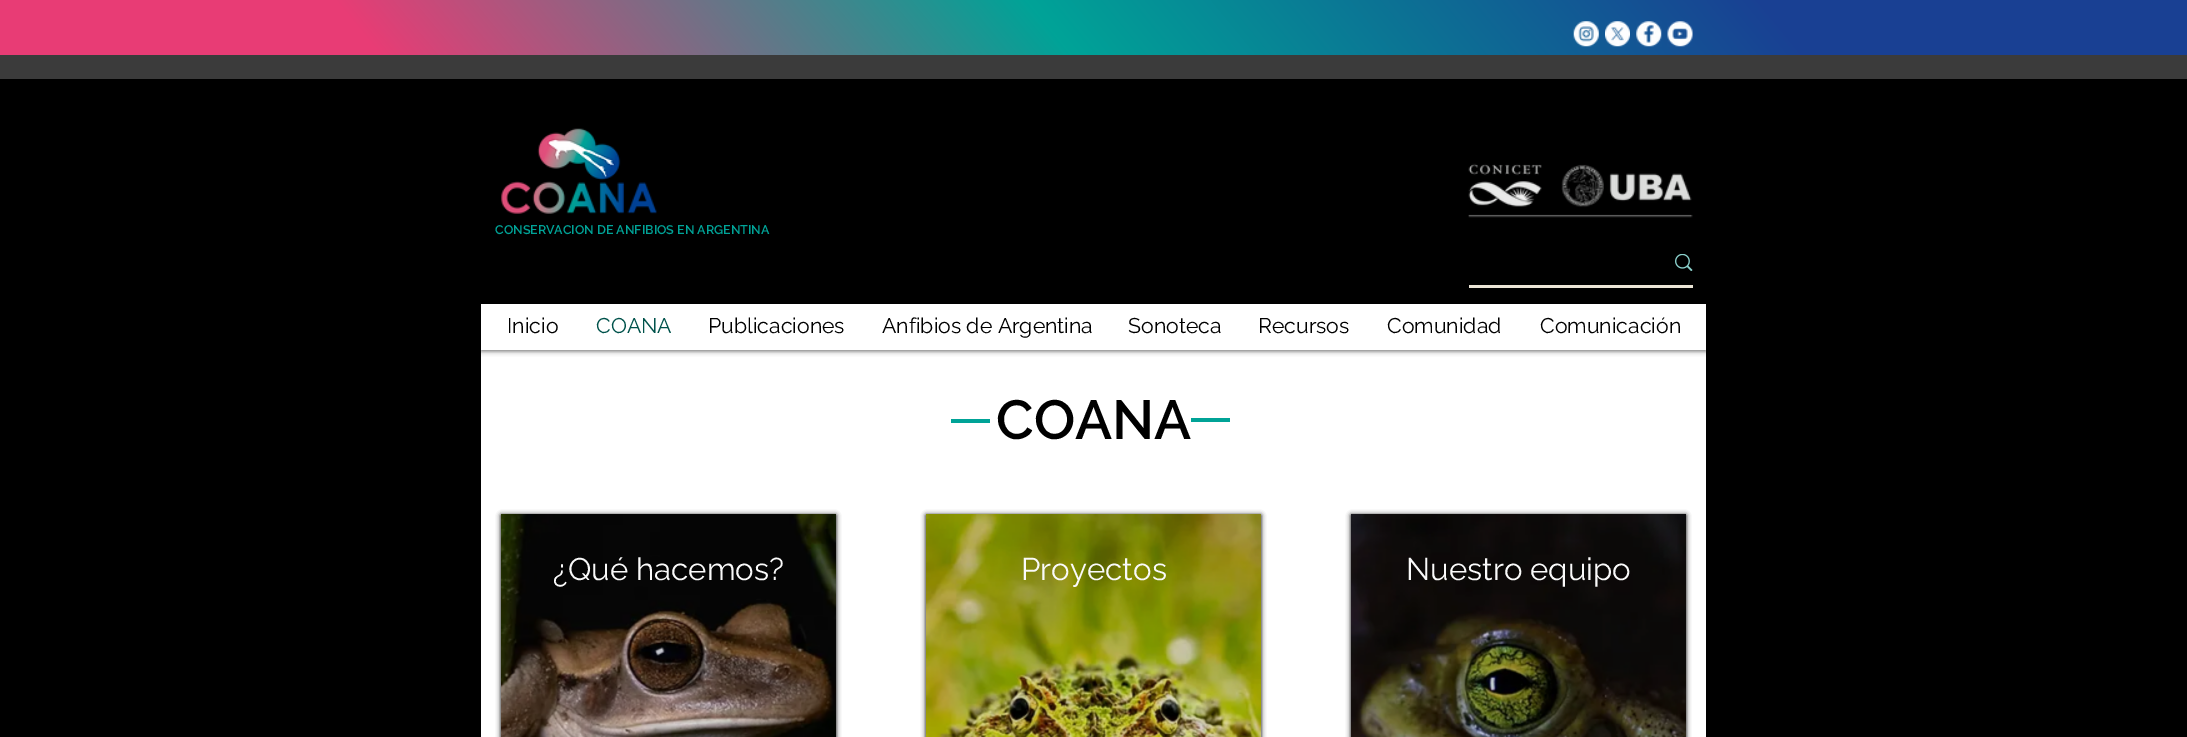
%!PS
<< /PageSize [2187 737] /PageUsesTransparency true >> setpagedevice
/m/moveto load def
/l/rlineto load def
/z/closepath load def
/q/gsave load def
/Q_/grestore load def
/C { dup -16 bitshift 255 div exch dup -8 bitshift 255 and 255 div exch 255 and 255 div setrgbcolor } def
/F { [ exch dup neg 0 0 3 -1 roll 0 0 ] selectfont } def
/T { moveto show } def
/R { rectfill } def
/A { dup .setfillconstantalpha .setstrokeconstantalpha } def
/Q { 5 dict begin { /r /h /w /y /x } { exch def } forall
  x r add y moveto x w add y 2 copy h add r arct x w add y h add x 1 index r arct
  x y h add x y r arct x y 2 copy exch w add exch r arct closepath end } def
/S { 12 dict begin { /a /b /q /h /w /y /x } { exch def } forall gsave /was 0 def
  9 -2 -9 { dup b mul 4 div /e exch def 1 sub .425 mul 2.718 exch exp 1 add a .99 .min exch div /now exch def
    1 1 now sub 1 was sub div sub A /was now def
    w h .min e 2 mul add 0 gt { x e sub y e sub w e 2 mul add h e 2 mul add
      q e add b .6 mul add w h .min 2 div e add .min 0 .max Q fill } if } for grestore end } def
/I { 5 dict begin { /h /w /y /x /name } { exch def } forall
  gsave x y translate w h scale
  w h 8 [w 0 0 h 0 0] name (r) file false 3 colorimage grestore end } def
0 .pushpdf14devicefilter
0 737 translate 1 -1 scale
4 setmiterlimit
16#3B3B3B C
0 0 2187 737 R
16#000000 C
0 79 2187 658 R
q 0 0 m 2187 0 l 0 55 l -2187 0 l z clip newpath
<< /ShadingType 2 /ColorSpace /DeviceRGB /Coords [429 575 1758 -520] /Extend [true true] /Function << /FunctionType 3 /Domain [0 1] /Functions [<< /FunctionType 2 /Domain [0 1] /C0 [.91 .235 .459] /C1 [.91 .235 .459] /N 1 >> << /FunctionType 2 /Domain [0 1] /C0 [.91 .235 .459] /C1 [0 .639 .592] /N 1 >> << /FunctionType 2 /Domain [0 1] /C0 [0 .639 .592] /C1 [.098 .251 .576] /N 1 >> << /FunctionType 2 /Domain [0 1] /C0 [.098 .251 .576] /C1 [.098 .251 .576] /N 1 >>] /Bounds [.17 .48 .81] /Encode [0 1 0 1 0 1 0 1] >> >> shfill Q_
(1.rgb) 1573 21 26 26 I
(2.rgb) 1605 21 25 26 I
(3.rgb) 1636 21 26 26 I
(4.rgb) 1667 21 26 26 I
(5.rgb) 501 128 156 86 I
(6.rgb) 1468 163 225 55 I
16#EBE5D6 C
1469 285 224 3 R
(7.rgb) 1675 254 18 17 I
/Raleway-SemiBold 12.5 F
16#00A397 C
(CONSERVACION DE ANFIBIOS EN ARGENTINA) 495 234 T
16#FFFFFF C
481 304 1225 433 R
q
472 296 m 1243 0 l 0 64 l -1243 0 l z 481 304 m 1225 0 l 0 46 l -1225 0 l z eoclip newpath
16#000000 C
481 305 1225 46 0 2.5 .6 S
Q_
/Raleway-Regular 21.25 F
16#000000 C
(Inicio) 507 333 T
16#00524B C
(COANA) 596 333 T
16#000000 C
(Publicaciones) 708 333 T
(Anfibios de Argentina) 882 333 T
(Sonoteca) 1128 333 T
(Recursos) 1258 333 T
(Comunidad) 1387 333 T
(Comunicación) 1540 333 T
16#00A397 C
951 419 39 4 R
/Raleway-SemiBold 55 F
16#000000 C
(COANA) 996 439 T
16#00A397 C
1191 418 39 4 R
q
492 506 m 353 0 l 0 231 l -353 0 l z 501 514 m 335 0 l 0 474 l -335 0 l z eoclip newpath
16#000000 C
501 515 335 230 0 2.5 1 S
Q_
(8.rgb) 501 514 335 223 I
/Raleway-Regular 31.25 F
16#FAFAFA C
(¿Qué hacemos?) 553 580 T
q
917 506 m 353 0 l 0 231 l -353 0 l z 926 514 m 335 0 l 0 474 l -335 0 l z eoclip newpath
16#000000 C
926 515 335 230 0 2.5 1 S
Q_
(9.rgb) 926 514 335 223 I
(Proyectos) 1021 580 T
q
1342 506 m 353 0 l 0 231 l -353 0 l z 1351 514 m 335 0 l 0 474 l -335 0 l z eoclip newpath
16#000000 C
1351 515 335 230 0 2.5 1 S
Q_
(10.rgb) 1351 514 335 223 I
(Nuestro equipo) 1406 580 T
.poppdf14devicefilter showpage
